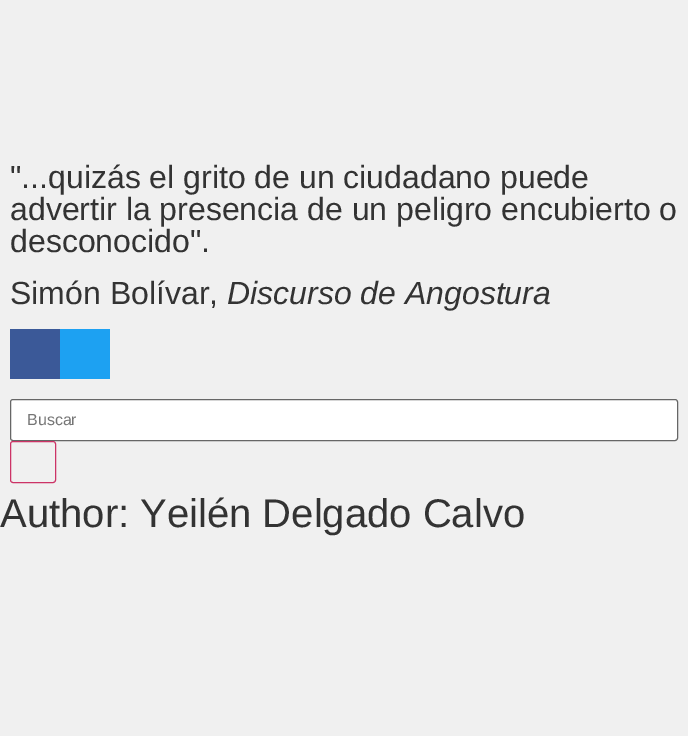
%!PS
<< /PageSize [688 736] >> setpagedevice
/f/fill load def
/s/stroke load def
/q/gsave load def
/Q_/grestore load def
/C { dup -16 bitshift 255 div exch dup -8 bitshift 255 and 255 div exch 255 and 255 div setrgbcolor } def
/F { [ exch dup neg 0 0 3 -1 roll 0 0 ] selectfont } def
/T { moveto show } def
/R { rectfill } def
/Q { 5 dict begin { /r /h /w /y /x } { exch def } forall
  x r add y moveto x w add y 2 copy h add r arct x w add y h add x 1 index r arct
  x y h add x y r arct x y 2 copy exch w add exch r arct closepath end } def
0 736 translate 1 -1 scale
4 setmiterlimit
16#F0F0F0 C
0 0 688 736 R
/LiberationSans-Regular 32 F
16#333333 C
("...quizás el grito de un ciudadano puede) 10 188 T
(advertir la presencia de un peligro encubierto o) 10 220 T
(desconocido".) 10 252 T
(Simón Bolívar,) 10 304 T
/LiberationSans-Italic 32 F
(Discurso de Angostura) 227 304 T
16#3B5998 C
10 329 50 50 R
16#1DA1F2 C
60 329 50 50 R
16#FFFFFF C
10.5 399.5 667 41 2.5 Q q f Q_
16#666666 C
s
/LiberationSans-Regular 16 F
16#757575 C
(Buscar) 27 425 T
16#CC3366 C
10.5 441.5 45 41 2.5 Q s
/LiberationSans-Regular 40 F
16#333333 C
(Author: Yeilén Delgado Calvo) 0 527 T
showpage
